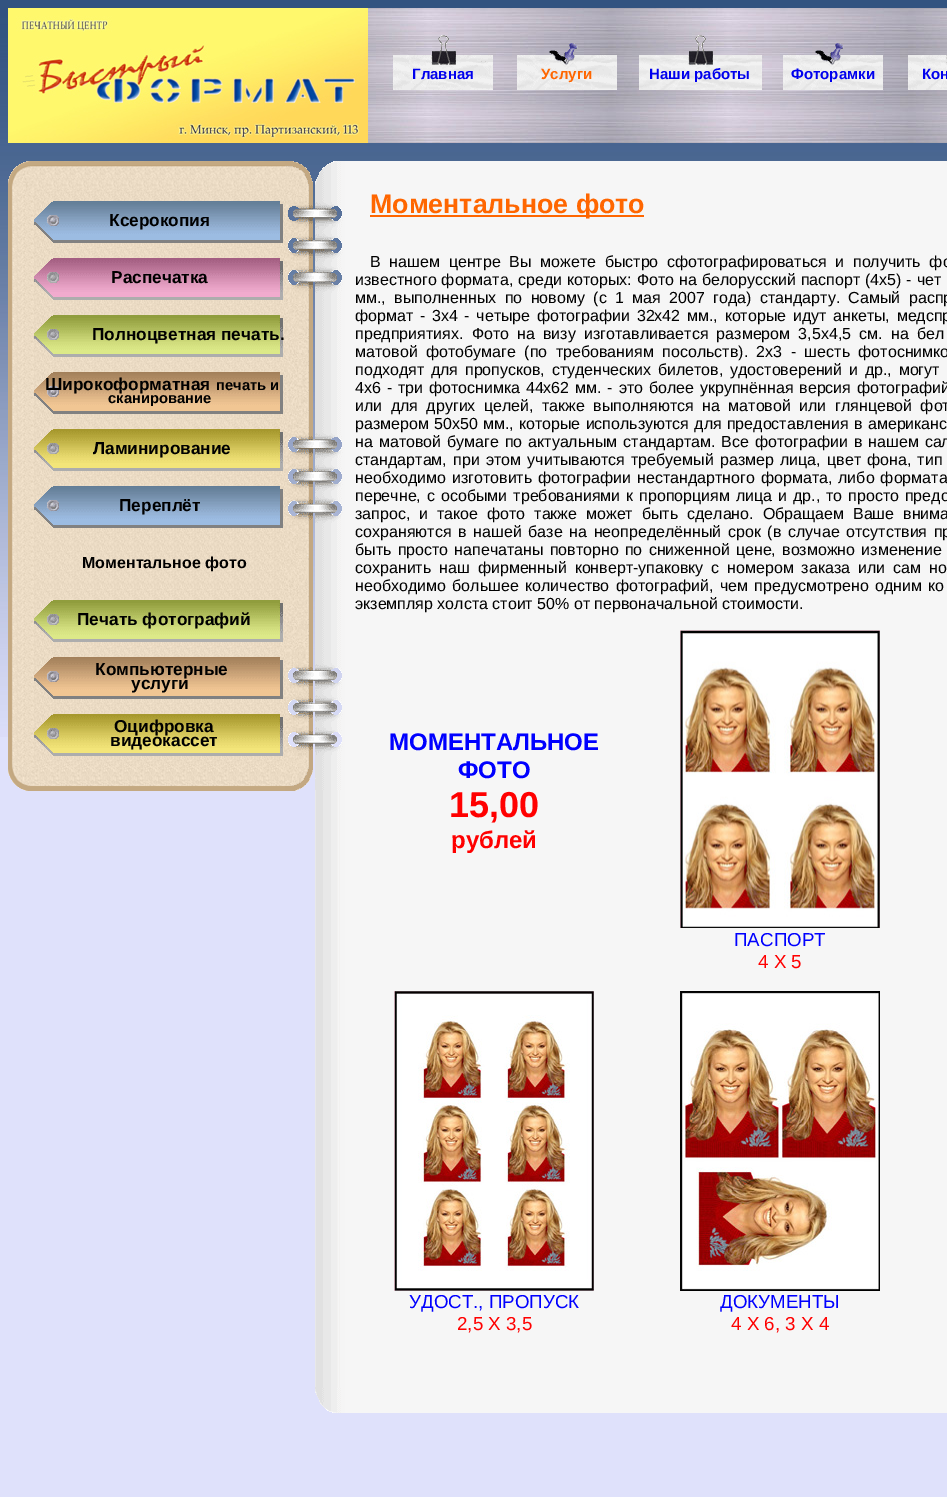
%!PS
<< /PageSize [947 1497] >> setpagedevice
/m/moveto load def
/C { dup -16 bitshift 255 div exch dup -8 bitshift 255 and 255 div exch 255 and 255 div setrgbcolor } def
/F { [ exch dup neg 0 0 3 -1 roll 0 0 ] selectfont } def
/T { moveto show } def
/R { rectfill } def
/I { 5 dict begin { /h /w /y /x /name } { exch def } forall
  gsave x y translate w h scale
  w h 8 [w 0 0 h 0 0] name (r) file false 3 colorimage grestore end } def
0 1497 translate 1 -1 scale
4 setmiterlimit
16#DFE1FB C
0 0 947 1497 R
(1.rgb) 0 0 947 737 I
(2.rgb) 8 8 360 135 I
(3.rgb) 368 8 579 135 I
(4.rgb) 393 35 100 55 I
/LiberationSans-Bold 15 F
16#0000EE C
(Главная) 412 79 T
(5.rgb) 517 43 100 47 I
16#FF6600 C
(Услуги) 541 79 T
(6.rgb) 639 35 123 55 I
16#0000EE C
(Наши работы) 649 79 T
(7.rgb) 783 43 100 47 I
(Фоторамки) 791 79 T
(8.rgb) 908 55 39 35 I
(Кон) 922 79 T
(9.rgb) 8 161 26 28 I
(10.rgb) 34 161 251 28 I
(11.rgb) 285 161 60 630 I
16#F6F6F6 C
345 161 602 1252 R
(12.rgb) 8 189 26 576 I
(13.rgb) 34 189 251 576 I
(14.rgb) 34 201 249 42 I
/LiberationSans-Bold 17.25 F
16#000000 C
(Ксерокопия) 109 226 T
(15.rgb) 34 258 249 42 I
(Распечатка) 111 283 T
(16.rgb) 34 315 249 42 I
(Полноцветная печать.) 92 340 T
(17.rgb) 34 372 249 42 I
(Широкоформатная) 45 390 T
/LiberationSans-Bold 14.75 F
(печать и) 216 390 T
(сканирование) 108 403 T
(18.rgb) 34 429 249 42 I
/LiberationSans-Bold 17.25 F
(Ламинирование) 93 454 T
(14.rgb) 34 486 249 42 I
(Переплёт) 119 511 T
/LiberationSans-Bold 16 F
(Моментальное фото) 82 568 T
(16.rgb) 34 600 249 42 I
/LiberationSans-Bold 17.25 F
(Печать фотографий) 77 625 T
(17.rgb) 34 657 249 42 I
(Компьютерные) 95 675 T
(услуги) 131 689 T
(18.rgb) 34 714 249 42 I
(Оцифровка) 114 732 T
(видеокассет) 110 746 T
16#FF6600 C
370 215 274 2 R
/LiberationSans-Bold 26.75 F
(Моментальное фото) 370 213 T
/LiberationSans-Regular 16 F
16#000000 C
370 267 m 4.25 0 32 (В нашем центре Вы можете быстро сфотографироваться и получить фо) widthshow
355 285 m .5 0 32 (известного формата, среди которых: Фото на белорусский паспорт \(4х5\) - чет) widthshow
355 303 m 4 0 32 (мм., выполненных по новому \(с 1 мая 2007 года\) стандарту. Самый распр) widthshow
355 321 m 2.25 0 32 (формат - 3х4 - четыре фотографии 32х42 мм., которые идут анкеты, медспр) widthshow
355 339 m 3.75 0 32 (предприятиях. Фото на визу изготавливается размером 3,5х4,5 см. на бел) widthshow
355 357 m 4 0 32 (матовой фотобумаге \(по требованиям посольств\). 2х3 - шесть фотоснимко) widthshow
355 375 m 2.25 0 32 (подходят для пропусков, студенческих билетов, удостоверений и др., могут) widthshow
355 393 m 1.4 0 32 (4х6 - три фотоснимка 44х62 мм. - это более укрупнённая версия фотографий) widthshow
355 411 m 4 0 32 (или для других целей, также выполняются на матовой или глянцевой фот) widthshow
355 429 m .75 0 32 (размером 50х50 мм., которые используются для предоставления в американс) widthshow
355 447 m 1.5 0 32 (на матовой бумаге по актуальным стандартам. Все фотографии в нашем сал) widthshow
355 465 m 1.75 0 32 (стандартам, при этом учитываются требуемый размер лица, цвет фона, тип) widthshow
355 483 m 1.5 0 32 (необходимо изготовить фотографии нестандартного формата, либо формата) widthshow
(перечне,) 355 501 T
427 501 m 1.5 0 32 (с особыми требованиями к пропорциям лица и др., то просто предо) widthshow
355 519 m 4.5 0 32 (запрос, и такое фото также может быть сделано. Обращаем Ваше внима) widthshow
355 537 m 2.25 0 32 (сохраняются в нашей базе на неопределённый срок \(в случае отсутствия пр) widthshow
355 555 m 1.75 0 32 (быть просто напечатаны повторно по сниженной цене, возможно изменение) widthshow
355 573 m 3.5 0 32 (сохранить наш фирменный конверт-упаковку с номером заказа или сам но) widthshow
355 591 m 2 0 32 (необходимо большее количество фотографий, чем предусмотрено) widthshow
875 591 m 2 0 32 (одним ко) widthshow
(экземпляр холста стоит 50% от первоначальной стоимости.) 355 609 T
/LiberationSans-Bold 24 F
16#0000FF C
(МОМЕНТАЛЬНОЕ) 389 750 T
(ФОТО) 458 778 T
/LiberationSans-Bold 36 F
16#FF0000 C
(15,00) 449 817 T
/LiberationSans-Bold 24 F
(рублей) 451 848 T
(19.rgb) 680 630 200 298 I
/LiberationSans-Regular 18.75 F
16#0000FF C
(ПАСПОРТ) 734 946 T
16#FF0000 C
(4 X 5) 758 968 T
(20.rgb) 394 991 200 300 I
(21.rgb) 680 991 200 300 I
16#0000FF C
(УДОСТ., ПРОПУСК) 409 1308 T
16#FF0000 C
(2,5 X 3,5) 457 1330 T
16#0000FF C
(ДОКУМЕНТЫ) 720 1308 T
16#FF0000 C
(4 X 6, 3 X 4) 731 1330 T
(22.rgb) 8 765 26 26 I
(23.rgb) 34 765 251 26 I
(24.rgb) 315 791 30 596 I
(25.rgb) 315 1387 30 26 I
showpage
